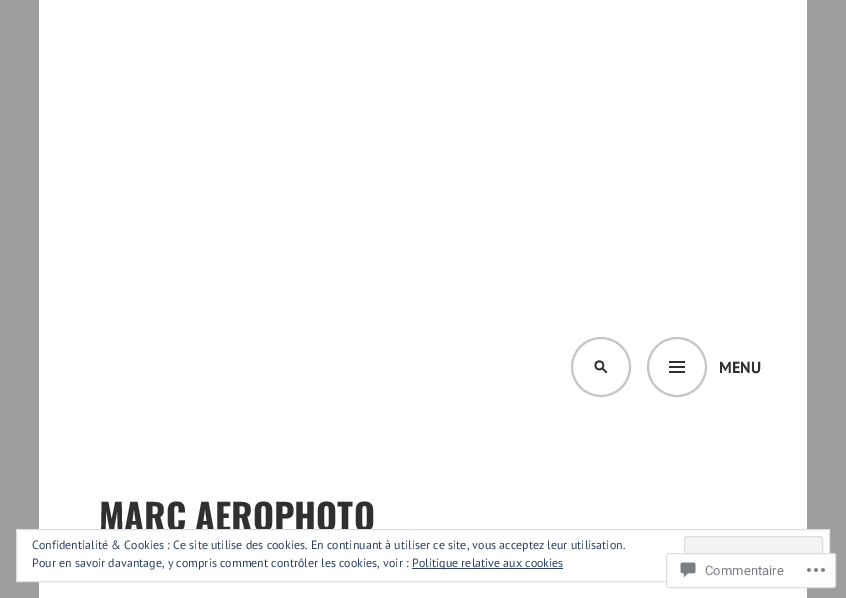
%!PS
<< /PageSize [846 598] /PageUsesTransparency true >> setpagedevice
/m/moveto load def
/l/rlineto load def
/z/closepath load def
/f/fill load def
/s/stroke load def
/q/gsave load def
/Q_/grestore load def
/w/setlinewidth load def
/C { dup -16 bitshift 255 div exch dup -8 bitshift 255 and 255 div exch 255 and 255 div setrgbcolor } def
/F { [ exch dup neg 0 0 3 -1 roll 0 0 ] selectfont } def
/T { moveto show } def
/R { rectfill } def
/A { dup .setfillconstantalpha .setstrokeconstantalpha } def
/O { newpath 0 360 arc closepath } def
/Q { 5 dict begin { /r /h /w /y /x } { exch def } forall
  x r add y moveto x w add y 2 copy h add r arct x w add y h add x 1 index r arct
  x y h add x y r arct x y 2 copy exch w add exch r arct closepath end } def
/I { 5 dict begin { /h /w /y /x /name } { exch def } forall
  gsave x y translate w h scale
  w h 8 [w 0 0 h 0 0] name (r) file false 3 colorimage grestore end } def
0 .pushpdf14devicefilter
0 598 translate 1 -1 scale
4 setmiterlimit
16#9E9E9E C
0 0 846 598 R
16#FFFFFF C
39 0 768 598 R
16#C5C5C5 C
2 w
601 367 29 O s
(1.rgb) 594 360 14 14 I
677 367 29 O s
(2.rgb) 669 361 16 12 I
/PTSans-Bold 16 F
16#303030 C
(MENU) 719 373 T
/Oswald-Bold 36 F
(MARC AEROPHOTO) 99 531 T
16#FFFFFF C
16.5 529.5 m 813 0 l 0 52 l -813 0 l z q f Q_
16#DEDEDE C
1 w
s
/PTSans-Regular 12 F
16#2E4467 C
(Confidentialité & Cookies : Ce site utilise des cookies. En continuant à utiliser ce site, vous acceptez leur utilisation.) 32 549 T
16#F3F3F3 C
684.5 536.5 138 38 2.5 Q q f Q_
16#DEDEDE C
s
16#2E4467 C
(Pour en savoir davantage, y compris comment contrôler les cookies, voir :) 32 567 T
412 568 151 1 R
(Politique relative aux cookies) 412 567 T
0.98 A
16#FFFFFF C
666 553 170 35 3 Q f
16#DCDCDE C
666.5 553.5 169 34 2.5 Q s
1 A
(3.rgb) 680 562 16 16 I
/Roboto-Regular 13 F
16#7B7F84 C
(Commentaire) 705 575 T
(4.rgb) 807 568 18 4 I
.poppdf14devicefilter showpage
